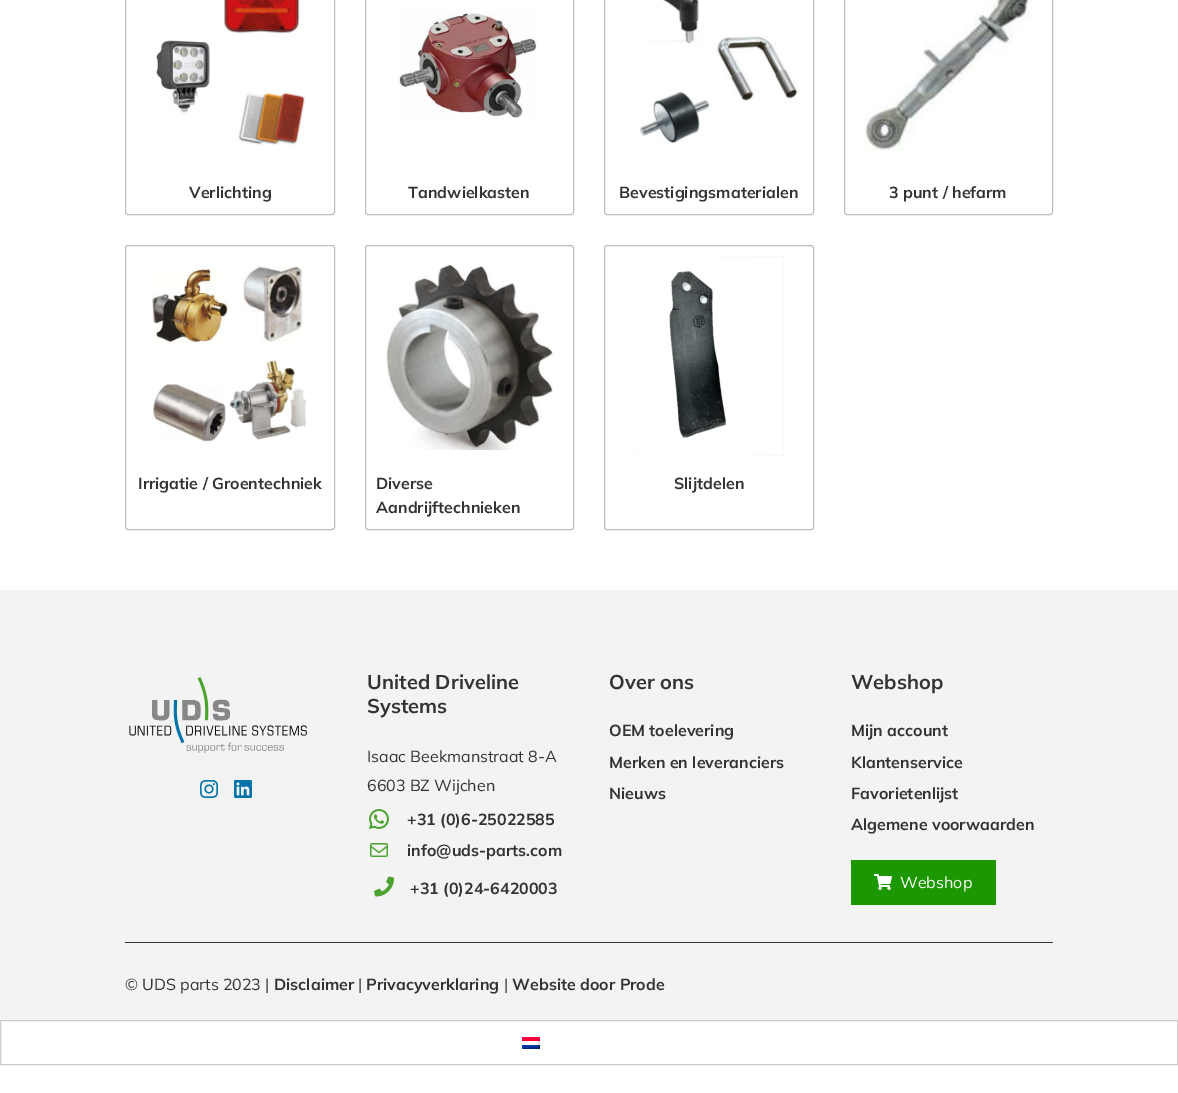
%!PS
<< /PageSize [1178 1093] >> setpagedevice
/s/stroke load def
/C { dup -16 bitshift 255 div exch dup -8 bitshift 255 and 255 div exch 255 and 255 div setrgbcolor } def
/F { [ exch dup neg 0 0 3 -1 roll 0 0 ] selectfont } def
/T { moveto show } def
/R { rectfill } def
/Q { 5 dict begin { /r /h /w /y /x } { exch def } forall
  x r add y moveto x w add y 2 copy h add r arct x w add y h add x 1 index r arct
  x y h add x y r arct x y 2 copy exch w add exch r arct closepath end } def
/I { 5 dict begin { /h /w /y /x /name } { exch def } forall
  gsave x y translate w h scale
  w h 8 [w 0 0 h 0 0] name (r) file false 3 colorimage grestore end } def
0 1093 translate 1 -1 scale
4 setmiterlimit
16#FFFFFF C
0 0 1178 1093 R
16#BEBEBE C
125.5 -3.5 209 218 2.5 Q s
(1.rgb) 156 0 150 146 I
/Mulish-Bold 16 F
16#333333 C
(Verlichting) 189 198 T
16#BEBEBE C
365.5 -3.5 208 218 2.5 Q s
(2.rgb) 397 11 140 108 I
16#333333 C
(Tandwielkasten) 408 198 T
16#BEBEBE C
604.5 -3.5 209 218 2.5 Q s
(3.rgb) 639 0 159 144 I
16#333333 C
(Bevestigingsmaterialen) 619 198 T
16#BEBEBE C
844.5 -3.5 208 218 2.5 Q s
(4.rgb) 864 0 169 151 I
16#333333 C
(3 punt / hefarm) 889 198 T
16#BEBEBE C
125.5 245.5 209 284 2.5 Q s
(5.rgb) 151 266 156 176 I
16#333333 C
(Irrigatie / Groentechniek) 138 489 T
16#BEBEBE C
365.5 245.5 208 284 2.5 Q s
(6.rgb) 386 264 168 186 I
16#333333 C
(Diverse) 376 489 T
(Aandrijftechnieken) 376 513 T
16#BEBEBE C
604.5 245.5 209 284 2.5 Q s
(7.rgb) 634 256 150 200 I
16#333333 C
(Slijtdelen) 674 489 T
16#F3F3F3 C
0 590 1178 430 R
(8.rgb) 129 677 178 76 I
(9.rgb) 200 780 18 18 I
(10.rgb) 234 780 18 18 I
/Mulish-Bold 20 F
16#333333 C
(United Driveline) 367 689 T
(Systems) 367 713 T
/Mulish-Regular 16 F
(Isaac Beekmanstraat 8-A) 367 762 T
(6603 BZ Wijchen) 367 791 T
(11.rgb) 369 809 20 20 I
/Mulish-Bold 16 F
(+31 \(0\)6-25022585) 407 825 T
(12.rgb) 370 843 18 14 I
(info@uds-parts.com) 407 856 T
(13.rgb) 374 876 20 21 I
(+31 \(0\)24-6420003) 410 894 T
/Mulish-Bold 20 F
(Over ons) 609 689 T
/Mulish-Bold 16 F
(OEM toelevering) 609 736 T
(Merken en leveranciers) 609 768 T
(Nieuws) 609 799 T
/Mulish-Bold 20 F
(Webshop) 851 689 T
/Mulish-Bold 16 F
(Mijn account) 851 736 T
(Klantenservice) 851 768 T
(Favorietenlijst) 851 799 T
(Algemene voorwaarden) 851 830 T
16#1C9700 C
851 860 145 45 R
(14.rgb) 874 874 18 16 I
/Mulish-Regular 16 F
16#FFFFFF C
(Webshop) 900 888 T
16#323232 C
125 942 928 1 R
16#333333 C
(© UDS parts 2023 |) 125 990 T
/Mulish-Bold 16 F
(Disclaimer) 274 990 T
/Mulish-Regular 16 F
(|) 358 990 T
/Mulish-Bold 16 F
(Privacyverklaring) 366 990 T
/Mulish-Regular 16 F
(|) 504 990 T
/Mulish-Bold 16 F
(Website door Prode) 512 990 T
16#CDCDCD C
.5 1020.5 1177 44 rectstroke
(15.rgb) 522 1037 18 12 I
showpage
